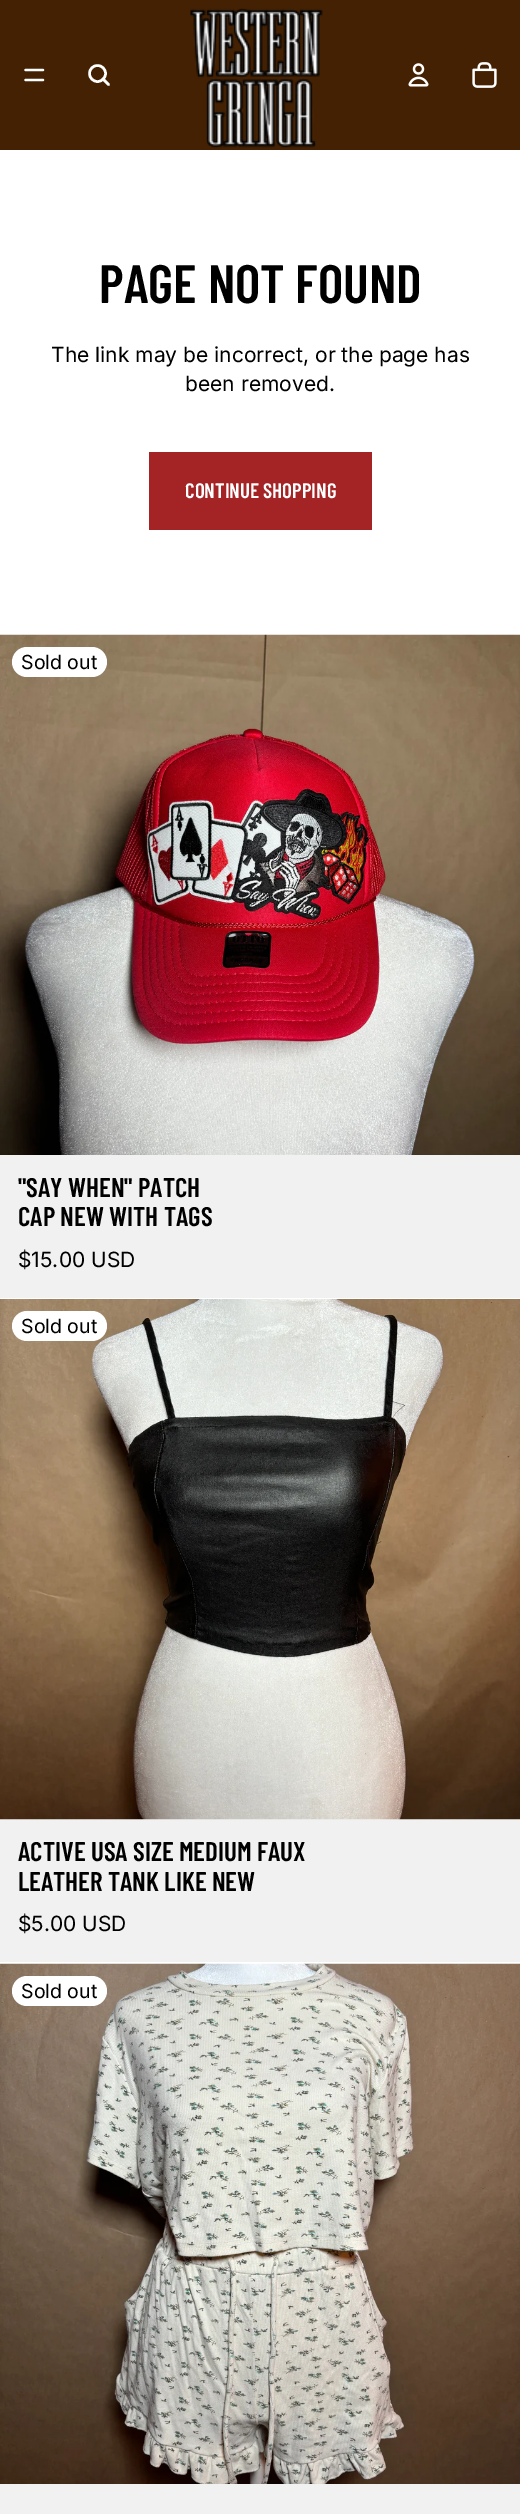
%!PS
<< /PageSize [520 2514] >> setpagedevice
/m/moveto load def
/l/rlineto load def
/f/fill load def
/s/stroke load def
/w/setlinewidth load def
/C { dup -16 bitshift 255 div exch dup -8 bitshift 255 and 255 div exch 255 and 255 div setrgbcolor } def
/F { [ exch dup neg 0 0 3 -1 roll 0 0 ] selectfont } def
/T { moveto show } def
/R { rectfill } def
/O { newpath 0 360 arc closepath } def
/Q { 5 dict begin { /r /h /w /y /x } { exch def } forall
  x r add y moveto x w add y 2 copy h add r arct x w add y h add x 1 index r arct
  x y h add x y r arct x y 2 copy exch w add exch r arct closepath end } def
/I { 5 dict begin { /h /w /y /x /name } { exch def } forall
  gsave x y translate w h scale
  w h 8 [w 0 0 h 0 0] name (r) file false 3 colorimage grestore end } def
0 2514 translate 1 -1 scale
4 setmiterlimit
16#FFFFFF C
0 0 520 2514 R
16#442103 C
0 0 520 150 R
16#FFFFFF C
2.2 w
1 setlinecap
25.5 70 m 17.5 0 l 25.5 80 m 17.5 0 l s
2.5 w
0 setlinecap
97.5 73.5 8 O s
1 setlinecap
1 setlinejoin
103 79 m 5.5 5.5 l s
(1.rgb) 190 8 133 140 I
(2.rgb) 408 63 21 24 I
(3.rgb) 472 62 25 26 I
/BarlowCondensed-SemiBold 54 F
16#000000 C
(PAGE NOT FOUND) 99 303 T
/Inter-Regular 21 F
(The link may be incorrect, or the page has) 51 362 T
(been removed.) 185 391 T
16#A42325 C
149 452 223 78 R
/BarlowCondensed-SemiBold 21 F
16#FFFFFF C
(CONTINUE SHOPPING) 185 498 T
16#F1F1F1 C
0 1155 520 143 R
(4.rgb) 0 634 520 521 I
16#FFFFFF C
12 647 95 30 15 Q f
/Inter-Regular 19.5 F
16#000000 C
(Sold out) 21 669 T
/BarlowCondensed-SemiBold 27 F
("SAY WHEN" PATCH) 18 1197 T
(CAP NEW WITH TAGS) 18 1226 T
/Inter-Regular 21 F
($15.00 USD) 18 1267 T
16#F1F1F1 C
0 1819 520 143 R
(5.rgb) 0 1299 520 521 I
16#FFFFFF C
12 1311 95 30 15 Q f
/Inter-Regular 19.5 F
16#000000 C
(Sold out) 21 1333 T
/BarlowCondensed-SemiBold 27 F
(ACTIVE USA SIZE MEDIUM FAUX) 18 1861 T
(LEATHER TANK LIKE NEW) 18 1891 T
/Inter-Regular 21 F
($5.00 USD) 18 1931 T
16#F1F1F1 C
0 2484 520 30 R
(6.rgb) 0 1963 520 521 I
16#FFFFFF C
12 1976 95 30 15 Q f
/Inter-Regular 19.5 F
16#000000 C
(Sold out) 21 1998 T
showpage
